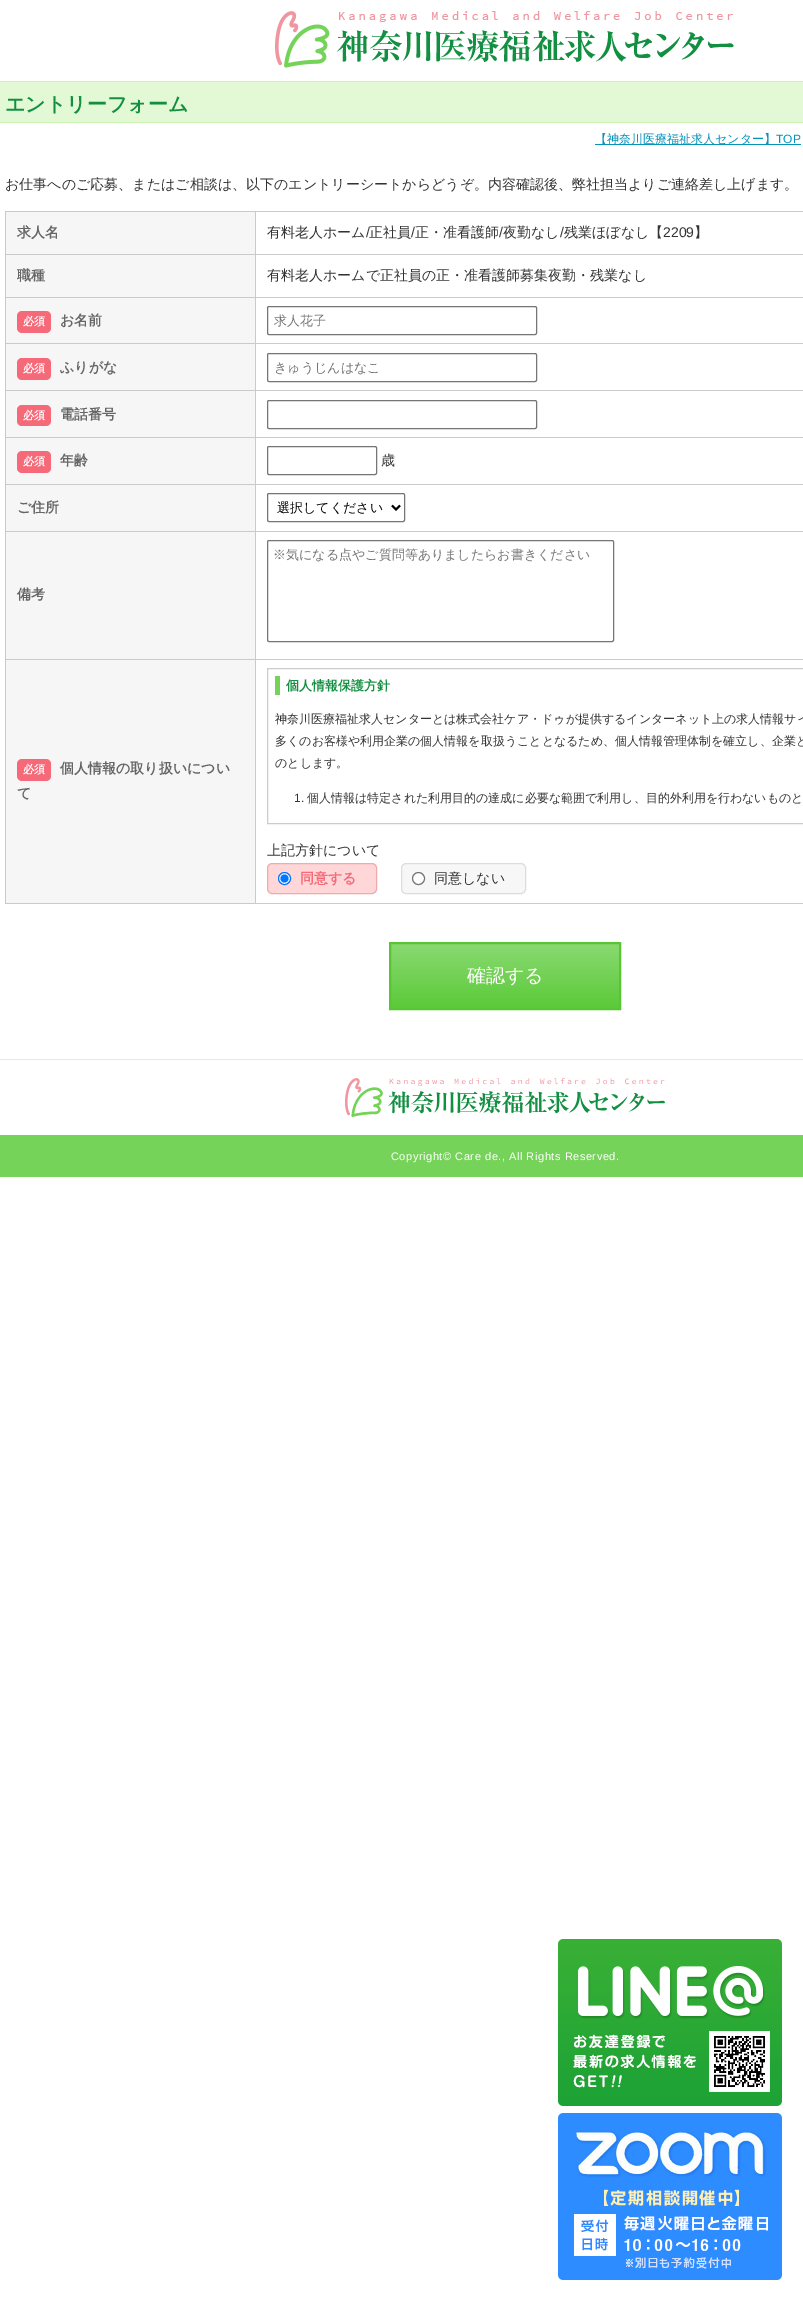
%!PS
<< /PageSize [803 2308] >> setpagedevice
/m/moveto load def
/l/rlineto load def
/z/closepath load def
/f/fill load def
/s/stroke load def
/q/gsave load def
/Q_/grestore load def
/w/setlinewidth load def
/C { dup -16 bitshift 255 div exch dup -8 bitshift 255 and 255 div exch 255 and 255 div setrgbcolor } def
/F { [ exch dup neg 0 0 3 -1 roll 0 0 ] selectfont } def
/T { moveto show } def
/R { rectfill } def
/O { newpath 0 360 arc closepath } def
/Q { 5 dict begin { /r /h /w /y /x } { exch def } forall
  x r add y moveto x w add y 2 copy h add r arct x w add y h add x 1 index r arct
  x y h add x y r arct x y 2 copy exch w add exch r arct closepath end } def
/I { 5 dict begin { /h /w /y /x /name } { exch def } forall
  gsave x y translate w h scale
  w h 8 [w 0 0 h 0 0] name (r) file false 3 colorimage grestore end } def
0 2308 translate 1 -1 scale
4 setmiterlimit
16#FFFFFF C
0 0 803 2308 R
(1.rgb) 275 11 459 57 I
16#E3F9D5 C
0 82 803 40 R
16#CBF4B1 C
0 81 803 1 R
0 122 803 1 R
/WenQuanYiZenHei-Bold 20 F
16#128F40 C
(エントリーフォーム) 5 111 T
16#0592BB C
595 144 206 1 R
/WenQuanYiZenHei-Medium 12 F
(【神奈川医療福祉求人センター】) 595 143 T
/LiberationSans-Regular 12 F
(TOP) 776 143 T
/WenQuanYiZenHei-Medium 14 F
16#333333 C
(お仕事へのご応募、またはご相談は、以下のエントリーシートからどうぞ。内容確認後、弊社担当よりご連絡差し上げます。) 5 189 T
16#F6F6F6 C
6 212 249 42 R
16#CCCCCC C
255 211 548 1 R
16#CACACA C
5 211 251 1 R
5 254 251 1 R
5 297 251 1 R
5 343 251 1 R
5 390 251 1 R
5 437 251 1 R
5 484 251 1 R
5 531 251 1 R
5 659 251 1 R
16#CCCCCC C
255 903 548 1 R
16#CACACA C
255 659 1 245 R
16#CCCCCC C
255 659 548 1 R
16#CACACA C
255 531 1 129 R
16#CCCCCC C
255 531 548 1 R
16#CACACA C
255 484 1 48 R
16#CCCCCC C
255 484 548 1 R
16#CACACA C
255 437 1 48 R
16#CCCCCC C
255 437 548 1 R
16#CACACA C
255 390 1 48 R
16#CCCCCC C
255 390 548 1 R
16#CACACA C
255 343 1 48 R
16#CCCCCC C
255 343 548 1 R
16#CACACA C
255 297 1 47 R
16#CCCCCC C
255 297 548 1 R
16#CACACA C
255 254 1 44 R
16#CCCCCC C
255 254 548 1 R
16#CACACA C
255 211 1 44 R
5 903 251 1 R
5 659 1 245 R
5 531 1 129 R
5 484 1 48 R
5 437 1 48 R
5 390 1 48 R
5 343 1 48 R
5 297 1 47 R
5 254 1 44 R
5 211 1 44 R
/WenQuanYiZenHei-Bold 14 F
16#666666 C
(求人名) 17 237 T
/WenQuanYiZenHei-Medium 14 F
16#333333 C
(有料老人ホーム) 267 237 T
/LiberationSans-Regular 14 F
(/) 366 237 T
/WenQuanYiZenHei-Medium 14 F
(正社員) 369 237 T
/LiberationSans-Regular 14 F
(/) 411 237 T
/WenQuanYiZenHei-Medium 14 F
(正・准看護師) 415 237 T
/LiberationSans-Regular 14 F
(/) 499 237 T
/WenQuanYiZenHei-Medium 14 F
(夜勤なし) 503 237 T
/LiberationSans-Regular 14 F
(/) 560 237 T
/WenQuanYiZenHei-Medium 14 F
(残業ほぼなし【) 564 237 T
/LiberationSans-Regular 14 F
(2209) 663 237 T
/WenQuanYiZenHei-Medium 14 F
(】) 694 237 T
16#F6F6F6 C
6 255 249 42 R
/WenQuanYiZenHei-Bold 14 F
16#666666 C
(職種) 17 280 T
/WenQuanYiZenHei-Medium 14 F
16#333333 C
(有料老人ホームで正社員の正・准看護師募集夜勤・残業なし) 267 280 T
16#F6F6F6 C
6 298 249 45 R
16#F56978 C
17 311 34 22 5 Q f
/WenQuanYiZenHei-Bold 11 F
16#FFFFFF C
(必須) 23 325 T
/WenQuanYiZenHei-Bold 14 F
16#666666 C
(お名前) 60 325 T
16#767676 C
267.5 306.5 269 28 1.5 Q s
/WenQuanYiZenHei-Medium 13 F
16#757575 C
(求人花子) 274 325 T
16#F6F6F6 C
6 344 249 46 R
16#F56978 C
17 358 34 22 5 Q f
/WenQuanYiZenHei-Bold 11 F
16#FFFFFF C
(必須) 23 372 T
/WenQuanYiZenHei-Bold 14 F
16#666666 C
(ふりがな) 60 372 T
16#767676 C
267.5 353.5 269 28 1.5 Q s
/WenQuanYiZenHei-Medium 13 F
16#757575 C
(きゅうじんはなこ) 274 372 T
16#F6F6F6 C
6 391 249 46 R
16#F56978 C
17 405 34 21 5 Q f
/WenQuanYiZenHei-Bold 11 F
16#FFFFFF C
(必須) 23 419 T
/WenQuanYiZenHei-Bold 14 F
16#666666 C
(電話番号) 60 419 T
16#767676 C
267.5 400.5 269 28 1.5 Q s
16#F6F6F6 C
6 438 249 46 R
16#F56978 C
17 451 34 22 5 Q f
/WenQuanYiZenHei-Bold 11 F
16#FFFFFF C
(必須) 23 465 T
/WenQuanYiZenHei-Bold 14 F
16#666666 C
(年齢) 60 465 T
16#767676 C
267.5 446.5 109 28 1.5 Q s
/WenQuanYiZenHei-Medium 14 F
16#333333 C
(歳) 381 465 T
16#F6F6F6 C
6 485 249 46 R
/WenQuanYiZenHei-Bold 14 F
16#666666 C
(ご住所) 17 512 T
16#767676 C
267.5 493.5 137 28 1.5 Q s
16#000000 C
2 w
392 505.5 m 4 4 l 4 -4 l s
/WenQuanYiZenHei-Medium 13 F
(選択してください) 277 512 T
16#767676 C
1 w
267.5 540.5 346 101 1.5 Q s
16#757575 C
(※気になる点やご質問等ありましたらお書きください) 273 559 T
16#F6F6F6 C
6 532 249 127 R
/WenQuanYiZenHei-Bold 14 F
16#666666 C
(備考) 17 599 T
16#F6F6F6 C
6 660 249 243 R
16#F56978 C
17 759 34 22 5 Q f
/WenQuanYiZenHei-Bold 11 F
16#FFFFFF C
(必須) 23 773 T
/WenQuanYiZenHei-Bold 14 F
16#666666 C
(個人情報の取り扱いについ) 60 773 T
(て) 17 798 T
16#CCCCCC C
267.5 668.5 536 155 rectstroke
16#76D359 C
275 676 5 19 R
/WenQuanYiZenHei-Bold 13 F
16#128F40 C
(個人情報保護方針) 286 690 T
/WenQuanYiZenHei-Medium 12 F
16#333333 C
(神奈川医療福祉求人センターとは株式会社ケア・ドゥが提供するインターネット上の求人情報サイ) 275 723 T
(多くのお客様や利用企業の個人情報を取扱うこととなるため、個人情報管理体制を確立し、企業と) 275 745 T
(のとします。) 275 767 T
/LiberationSans-Regular 12 F
(1.) 294 802 T
/WenQuanYiZenHei-Medium 12 F
(個人情報は特定された利用目的の達成に必要な範囲で利用し、目的外利用を行わないものと) 307 802 T
/WenQuanYiZenHei-Medium 14 F
(上記方針について) 267 855 T
16#FFD7D8 C
267.5 863.5 109 30 4.5 Q q f Q_
16#F0ABAD C
s
16#FFFFFF C
284.5 878.5 6 O q f Q_
16#0075FF C
s
284.5 878.5 4 O f
/WenQuanYiZenHei-Bold 14 F
16#F56978 C
(同意する) 300 883 T
16#F7F7F7 C
401.5 863.5 124 30 4.5 Q q f Q_
16#DDDDDD C
s
16#FFFFFF C
418.5 878.5 6 O q f Q_
16#767676 C
s
/WenQuanYiZenHei-Medium 14 F
16#333333 C
(同意しない) 434 883 T
q 391 944 m 228 0 l 0 64 l -228 0 l z clip newpath
<< /ShadingType 2 /ColorSpace /DeviceRGB /Coords [505 944 505 1008] /Extend [true true] /Function << /FunctionType 2 /Domain [0 1] /C0 [.541 .851 .443] /C1 [.357 .792 .224] /N 1 >> >> shfill Q_
16#57C534 C
2 w
390 943 230 66 rectstroke
/WenQuanYiZenHei-Medium 19 F
16#FFFFFF C
(確認する) 467 982 T
16#E8E8E8 C
0 1059 803 1 R
(2.rgb) 345 1078 320 39 I
16#76D359 C
0 1135 803 42 R
/LiberationSans-Regular 11 F
16#FFFFFF C
391 1160 m .55 0 (Copyright© Care de., All Rights Reserved.) ashow
(3.rgb) 558 1939 224 167 I
(4.rgb) 558 2113 224 167 I
showpage
